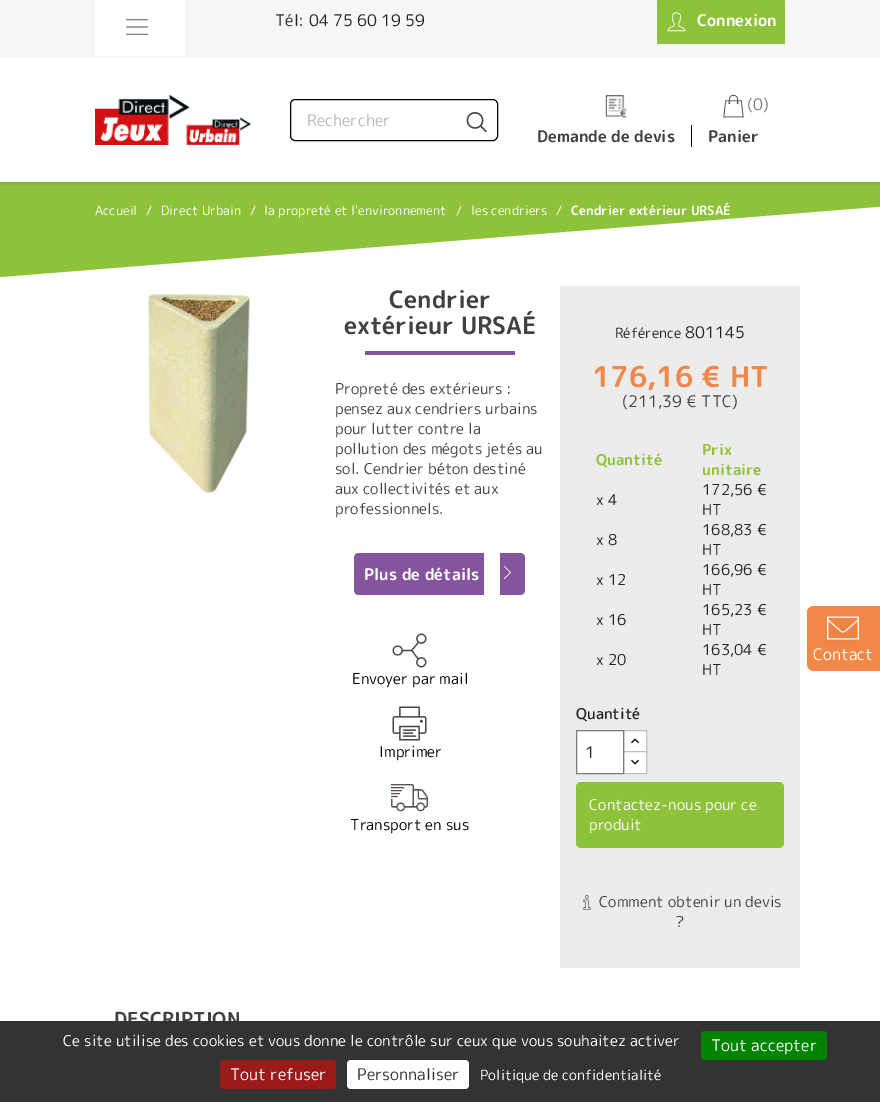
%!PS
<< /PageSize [880 1102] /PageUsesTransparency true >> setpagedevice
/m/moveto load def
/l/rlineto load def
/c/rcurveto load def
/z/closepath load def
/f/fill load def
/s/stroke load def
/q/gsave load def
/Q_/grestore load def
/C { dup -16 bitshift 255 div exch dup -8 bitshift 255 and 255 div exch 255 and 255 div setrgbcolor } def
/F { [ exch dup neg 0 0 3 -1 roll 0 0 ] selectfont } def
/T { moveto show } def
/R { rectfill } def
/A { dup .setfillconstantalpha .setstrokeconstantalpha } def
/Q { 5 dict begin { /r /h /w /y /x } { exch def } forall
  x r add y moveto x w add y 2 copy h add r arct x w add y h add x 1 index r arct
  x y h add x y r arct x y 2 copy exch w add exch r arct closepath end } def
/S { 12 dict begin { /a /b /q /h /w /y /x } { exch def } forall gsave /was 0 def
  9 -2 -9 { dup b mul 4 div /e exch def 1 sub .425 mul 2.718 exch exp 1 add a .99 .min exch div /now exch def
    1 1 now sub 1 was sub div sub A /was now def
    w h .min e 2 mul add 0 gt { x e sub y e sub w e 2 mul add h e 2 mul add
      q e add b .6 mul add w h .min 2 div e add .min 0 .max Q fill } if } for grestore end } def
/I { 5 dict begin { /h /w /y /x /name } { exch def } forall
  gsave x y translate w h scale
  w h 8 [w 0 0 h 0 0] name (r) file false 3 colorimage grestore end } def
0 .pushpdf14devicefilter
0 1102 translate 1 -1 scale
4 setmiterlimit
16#FFFFFF C
0 0 880 1102 R
16#8EC23A C
0 182 m 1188 0 l -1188 95 l z f
q
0 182 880 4 rectclip
16#000000 C
0 2 880 182 0 2.5 .11 S
Q_
16#F6F6F6 C
0 0 880 58 R
16#FFFFFF C
95 0 90 56 R
(1.rgb) 126 18 22 18 I
/RoundedMplus1c-Regular 16 F
16#232323 C
(Tél: 04 75 60 19 59) 275 26 T
16#8EC23A C
657 0 128 44 1.5 Q f
(2.rgb) 667 12 19 20 I
/RoundedMplus1cBold-Bold 16 F
16#FFFFFF C
(Connexion) 697 26 T
(3.rgb) 95 95 156 50 I
16#000000 C
290.5 99.5 207 41 4.5 Q s
/RoundedMplus1c-Regular 16 F
16#B7B7B7 C
(Rechercher) 307 126 T
(4.rgb) 466 112 21 21 I
16#7A7A7A C
(\(0\)) 747 110 T
(5.rgb) 723 94 21 24 I
/RoundedMplus1cBold-Bold 16 F
16#414141 C
(Panier) 708 142 T
(6.rgb) 605 95 22 23 I
(Demande de devis) 537 142 T
16#000000 C
691 125 1 22 R
/RoundedMplus1c-Regular 12.75 F
16#FFFFFF C
(Accueil) 95 215 T
(/) 146 215 T
(Direct Urbain) 161 215 T
(/) 250 215 T
(la propreté et l'environnement) 264 215 T
(/) 456 215 T
(les cendriers) 471 215 T
(/) 556 215 T
/RoundedMplus1cBold-Bold 12.75 F
(Cendrier extérieur URSAÉ) 571 215 T
(7.rgb) 147 294 104 200 I
/RoundedMplus1cBold-Bold 24 F
16#414141 C
(Cendrier) 389 308 T
(extérieur URSAÉ) 344 334 T
16#86539F C
365 351 150 4 R
/RoundedMplus1c-Regular 15 F
16#414141 C
(Propreté des extérieurs :) 335 394 T
(pensez aux cendriers urbains) 335 414 T
(pour lutter contre la) 335 434 T
(pollution des mégots jetés au) 335 454 T
(sol. Cendrier béton destiné) 335 474 T
(aux collectivités et aux) 335 494 T
(professionnels.) 335 514 T
16#86539F C
359 553 m 121 0 l 0 42 l -121 0 l -3 0 -5 -2 -5 -5 c 0 -32 l 0 -3 2 -5 5 -5 c z f
/RoundedMplus1cBold-Bold 16 F
16#FFFFFF C
(Plus de détails) 364 580 T
16#86539F C
480 553 4 42 R
500 553 m 20 0 l 3 0 5 2 5 5 c 0 32 l 0 3 -2 5 -5 5 c -20 0 l z f
(8.rgb) 504 566 7 13 I
(9.rgb) 392 633 35 35 I
/RoundedMplus1c-Regular 15 F
16#000000 C
(Envoyer par mail) 352 684 T
(10.rgb) 392 706 35 35 I
(Imprimer) 379 757 T
(11.rgb) 391 784 37 28 I
(Transport en sus) 350 830 T
16#ECECEC C
560 286 240 682 R
/RoundedMplus1c-Regular 14 F
16#232323 C
(Référence) 615 338 T
/RoundedMplus1c-Regular 16 F
(801145) 685 338 T
/RoundedMplus1cBold-Bold 28.75 F
16#F28847 C
(176,16 € HT) 592 387 T
/RoundedMplus1c-Regular 16 F
16#414141 C
(\(211,39 € TTC\)) 622 407 T
/RoundedMplus1cBold-Bold 15 F
16#8EC23A C
(Quantité) 596 465 T
(Prix) 702 455 T
(unitaire) 702 475 T
/RoundedMplus1c-Regular 15 F
16#232323 C
(x 4) 596 505 T
(172,56 €) 702 495 T
(HT) 702 515 T
(x 8) 596 545 T
(168,83 €) 702 535 T
(HT) 702 555 T
(x 12) 596 585 T
(166,96 €) 702 575 T
(HT) 702 595 T
(x 16) 596 625 T
(165,23 €) 702 615 T
(HT) 702 635 T
(x 20) 596 665 T
(163,04 €) 702 655 T
(HT) 702 675 T
/RoundedMplus1c-Medium 15 F
(Quantité) 576 719 T
16#FFFFFF C
624 731 22 20 R
16#BFBFBF C
623.5 730.5 23 22 rectstroke
16#FFFFFF C
623.5 751.5 m 23 0 l 0 22 l -23 0 l z q f Q_
16#BFBFBF C
s
16#FFFFFF C
576.5 730.5 m 47 0 l 0 43 l -47 0 l z q f Q_
16#7A7A7A C
s
/RoundedMplus1c-Regular 16 F
16#232323 C
(1) 585 758 T
(12.rgb) 631 738 8 6 I
(13.rgb) 631 759 8 6 I
16#8EC23A C
576 782 208 66 5 Q f
/RoundedMplus1c-Regular 15 F
16#FFFFFF C
(Contactez-nous pour ce) 589 810 T
(produit) 589 830 T
(14.rgb) 583 895 8 15 I
16#414141 C
(Comment obtenir un devis) 599 907 T
(?) 675 927 T
/RoundedMplus1cBold-Bold 19.25 F
(DESCRIPTION) 114 1026 T
16#F28847 C
814 606 m 66 0 l 0 65 l -66 0 l -4 0 -7 -3 -7 -7 c 0 -52 l 0 -3 3 -6 7 -6 c z f
(15.rgb) 826 616 34 29 I
/RoundedMplus1c-Regular 16 F
16#FFFFFF C
(Contact) 813 660 T
16#333333 C
0 1021 880 81 R
/RoundedMplus1c-Regular 15 F
16#FFFFFF C
(Ce site utilise des cookies et vous donne le contrôle sur ceux que vous souhaitez activer) 63 1046 T
16#008300 C
701 1031 126 29 4 Q f
/RoundedMplus1c-Regular 16 F
16#FFFFFF C
(Tout accepter) 711 1051 T
16#9C1A1A C
220 1060 116 29 4 Q f
16#FFFFFF C
(Tout refuser) 230 1080 T
347 1060 122 29 4 Q f
16#333333 C
(Personnaliser) 357 1080 T
/RoundedMplus1c-Regular 14 F
16#FFFFFF C
(Politique de confidentialité) 480 1080 T
.poppdf14devicefilter showpage
